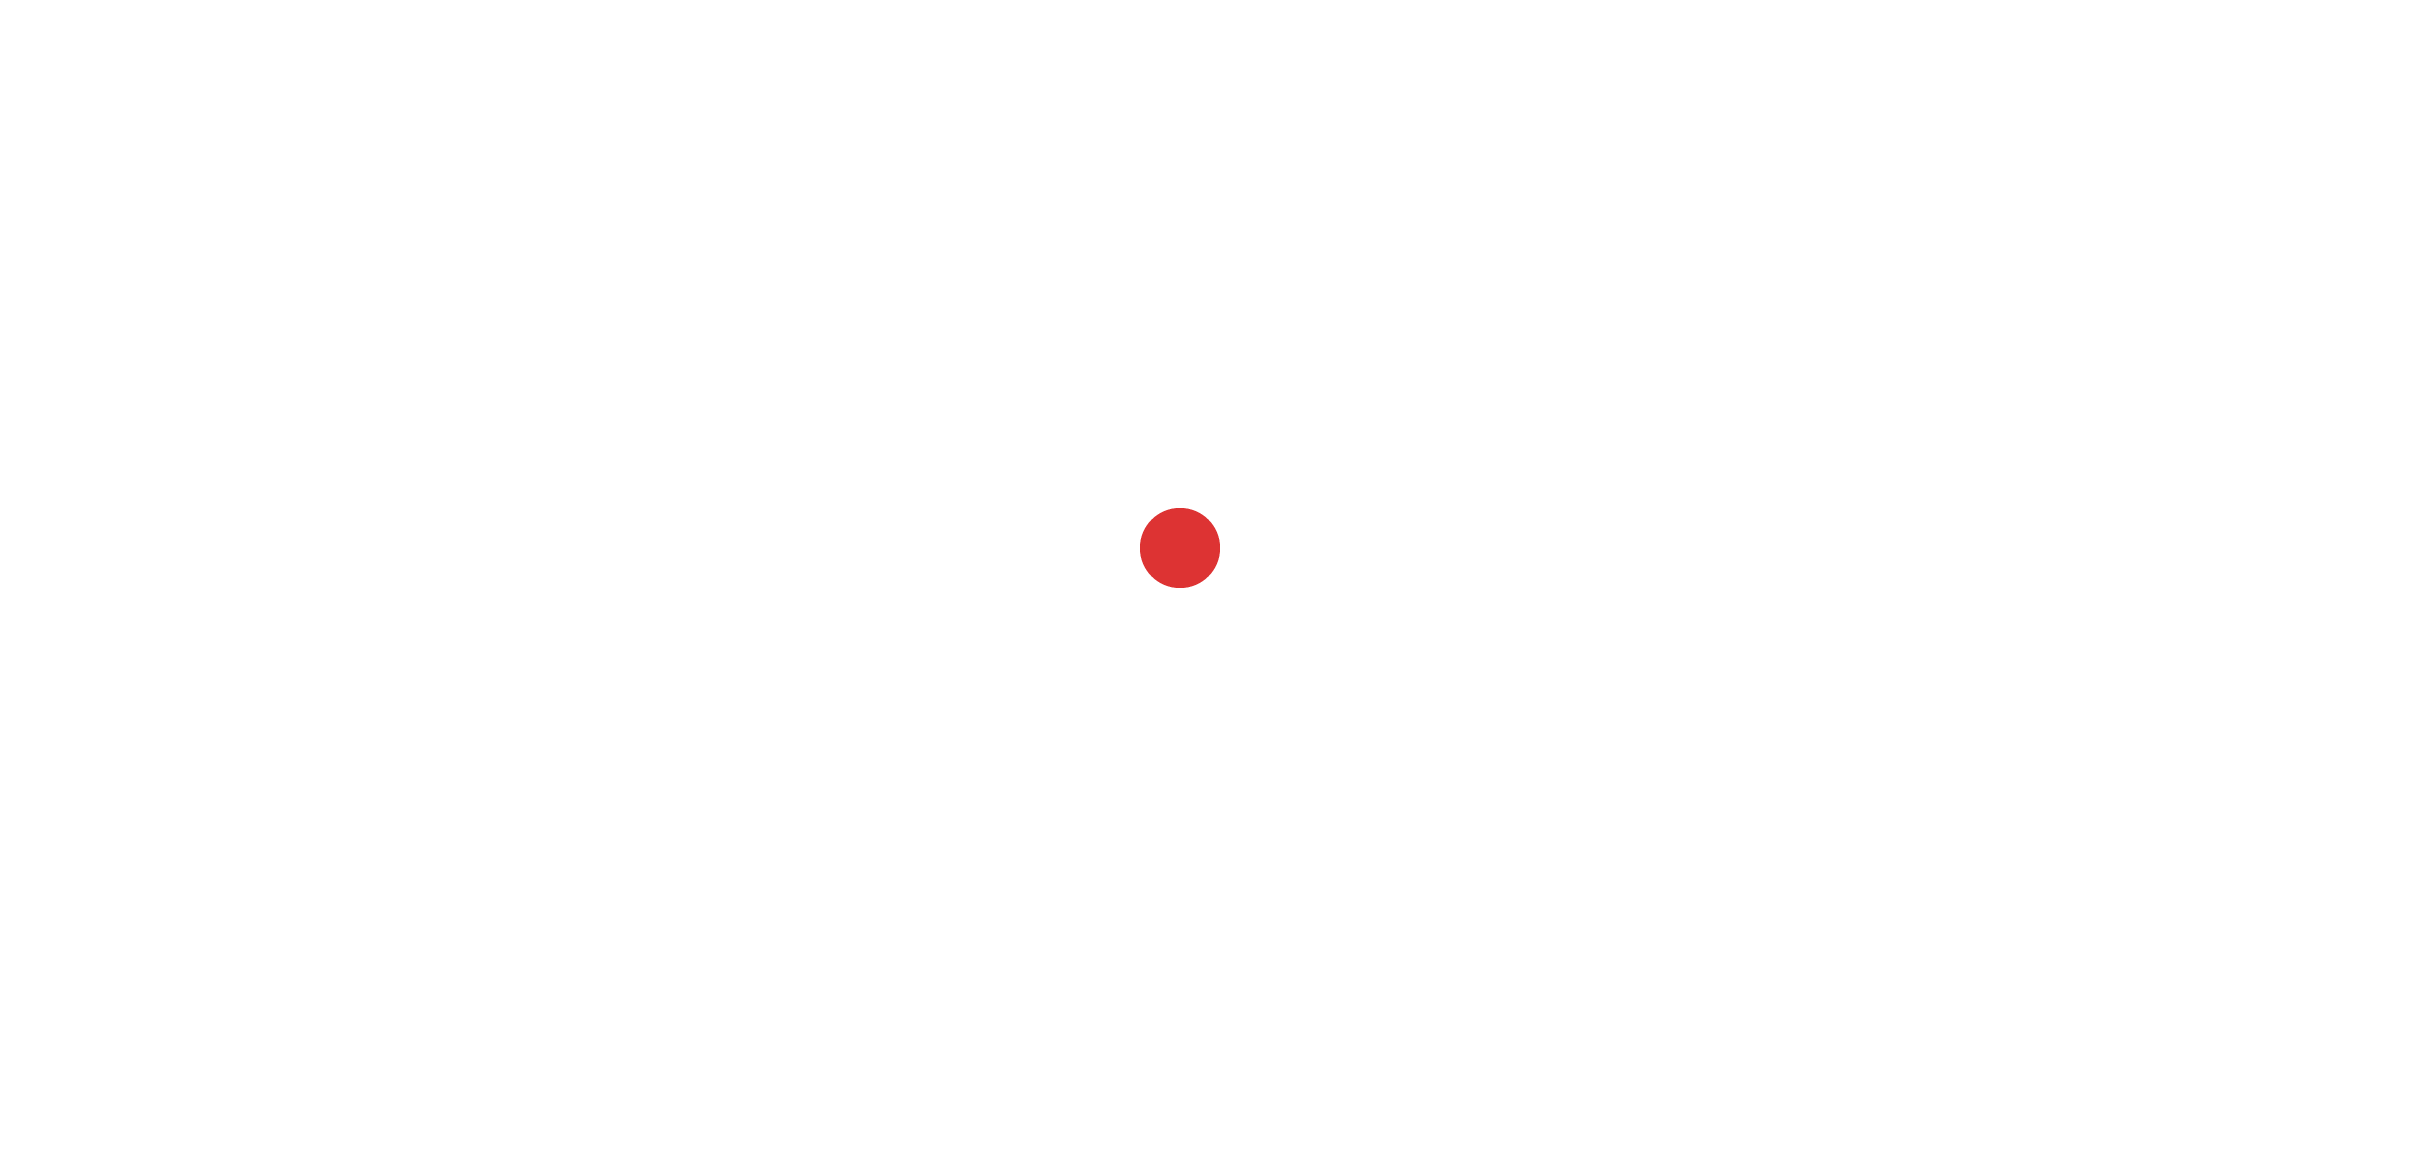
%!PS
<< /PageSize [2435 1176] >> setpagedevice
/f/fill load def
/C { dup -16 bitshift 255 div exch dup -8 bitshift 255 and 255 div exch 255 and 255 div setrgbcolor } def
/R { rectfill } def
/O { newpath 0 360 arc closepath } def
0 1176 translate 1 -1 scale
4 setmiterlimit
16#FFFFFF C
0 0 2435 1176 R
16#DD3333 C
1180 548 40 O f
showpage
